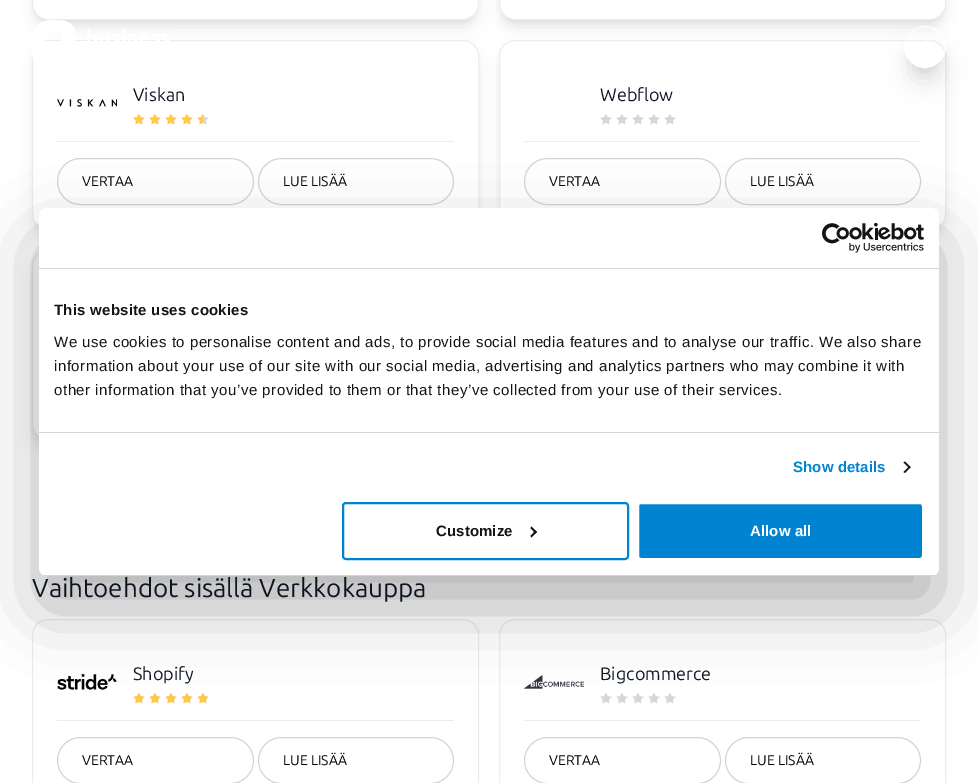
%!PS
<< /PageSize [978 783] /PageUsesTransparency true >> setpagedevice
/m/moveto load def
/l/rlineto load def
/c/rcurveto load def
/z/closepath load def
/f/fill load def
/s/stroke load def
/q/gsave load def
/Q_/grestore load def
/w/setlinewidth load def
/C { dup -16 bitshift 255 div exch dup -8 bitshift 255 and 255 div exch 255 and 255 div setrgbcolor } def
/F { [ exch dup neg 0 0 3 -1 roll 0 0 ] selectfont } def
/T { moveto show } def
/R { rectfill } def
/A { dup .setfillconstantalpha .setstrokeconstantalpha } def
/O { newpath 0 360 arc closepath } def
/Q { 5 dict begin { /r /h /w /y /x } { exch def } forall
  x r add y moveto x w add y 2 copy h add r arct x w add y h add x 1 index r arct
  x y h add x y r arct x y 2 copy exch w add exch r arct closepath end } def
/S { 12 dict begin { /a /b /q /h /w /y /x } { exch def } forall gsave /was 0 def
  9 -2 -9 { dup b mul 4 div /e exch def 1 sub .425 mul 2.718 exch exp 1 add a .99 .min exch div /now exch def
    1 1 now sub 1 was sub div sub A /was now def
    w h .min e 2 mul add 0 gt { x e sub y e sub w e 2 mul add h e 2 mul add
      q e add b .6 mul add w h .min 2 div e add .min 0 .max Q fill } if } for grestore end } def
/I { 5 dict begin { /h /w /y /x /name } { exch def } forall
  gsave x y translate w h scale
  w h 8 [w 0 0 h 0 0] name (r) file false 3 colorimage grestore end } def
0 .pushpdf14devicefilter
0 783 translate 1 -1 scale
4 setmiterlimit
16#FFFFFF C
0 0 978 783 R
16#000000 C
36 -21 439 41 12 3 .1 S
35 -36 441 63 13 7.5 .1 S
36 48 439 182 12 3 .1 S
35 53 441 184 13 7.5 .1 S
16#FFFFFF C
32.5 -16.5 446 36 15.5 Q q f Q_
16#EAECF0 C
s
16#000000 C
502 -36 441 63 13 7.5 .1 S
16#FFFFFF C
32.5 40.5 446 189 15.5 Q q f Q_
16#EAECF0 C
s
(1.rgb) 32 20 138 39 I
16#000000 C
503 48 439 182 12 3 .1 S
502 53 441 184 13 7.5 .1 S
16#FFFFFF C
499.5 40.5 446 189 15.5 Q q f Q_
16#EAECF0 C
s
q
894 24 m 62 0 l 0 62 l -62 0 l z 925 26 m 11.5 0 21 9.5 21 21 c 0 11.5 -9.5 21 -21 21 c -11.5 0 -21 -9.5 -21 -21 c 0 -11.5 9.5 -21 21 -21 c z eoclip newpath
16#000000 C
910 40 30 30 15 5 .1 S
Q_
16#000000 C
503 -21 439 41 12 3 .1 S
16#FFFFFF C
499.5 -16.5 446 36 15.5 Q q f Q_
16#EAECF0 C
s
q
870 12 m 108 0 l 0 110 l -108 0 l z 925 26 m 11.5 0 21 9.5 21 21 c 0 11.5 -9.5 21 -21 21 c -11.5 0 -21 -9.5 -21 -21 c 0 -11.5 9.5 -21 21 -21 c z eoclip newpath
16#000000 C
909 51 32 32 16 12.5 .1 S
Q_
16#FFFFFF C
925 47 20.5 O s
(2.rgb) 914 40 16 1 I
16#EAECF0 C
57 141 397 1 R
/Ubuntu-Regular 18 F
16#101828 C
(Viskan) 133 101 T
(3.rgb) 133 113 12 12 I
(3.rgb) 149 113 12 12 I
(3.rgb) 165 113 12 12 I
(3.rgb) 181 113 12 12 I
(4.rgb) 197 113 12 12 I
(5.rgb) 57 99 60 8 I
16#D0D5DD C
57.5 158.5 196 46 23 Q s
/Ubuntu-Regular 14 F
16#000000 C
(VERTAA) 82 186 T
16#D0D5DD C
258.5 158.5 195 46 23 Q s
16#000000 C
(LUE LISÄÄ) 283 186 T
16#EAECF0 C
524 141 397 1 R
/Ubuntu-Regular 18 F
16#101828 C
(Webflow) 600 101 T
(6.rgb) 600 113 12 12 I
(6.rgb) 616 113 12 12 I
(6.rgb) 632 113 12 12 I
(6.rgb) 648 113 12 12 I
(6.rgb) 664 113 12 12 I
16#D0D5DD C
524.5 158.5 196 46 23 Q s
/Ubuntu-Regular 14 F
16#000000 C
(VERTAA) 549 186 T
16#D0D5DD C
725.5 158.5 195 46 23 Q s
16#000000 C
(LUE LISÄÄ) 750 186 T
36 258 439 182 12 3 .1 S
35 263 441 184 13 7.5 .1 S
16#FFFFFF C
32.5 250.5 446 189 15.5 Q q f Q_
16#EAECF0 C
s
/Ubuntu-Regular 26 F
16#101828 C
(Vaihtoehdot sisällä Verkkokauppa) 32 597 T
16#EAECF0 C
32.5 619.5 446 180 15.5 Q s
57 720 397 1 R
(7.rgb) 57 674 60 16 I
/Ubuntu-Regular 18 F
16#101828 C
(Shopify) 133 680 T
(3.rgb) 133 692 12 12 I
(3.rgb) 149 692 12 12 I
(3.rgb) 165 692 12 12 I
(3.rgb) 181 692 12 12 I
(8.rgb) 197 692 12 12 I
16#D0D5DD C
57.5 737.5 196 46 23 Q s
/Ubuntu-Regular 14 F
16#000000 C
(VERTAA) 82 765 T
16#D0D5DD C
258.5 737.5 195 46 23 Q s
16#000000 C
(LUE LISÄÄ) 283 765 T
16#EAECF0 C
499.5 619.5 446 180 15.5 Q s
524 720 397 1 R
(9.rgb) 524 675 60 14 I
/Ubuntu-Regular 18 F
16#101828 C
(Bigcommerce) 600 680 T
(6.rgb) 600 692 12 12 I
(6.rgb) 616 692 12 12 I
(6.rgb) 632 692 12 12 I
(6.rgb) 648 692 12 12 I
(6.rgb) 664 692 12 12 I
16#D0D5DD C
524.5 737.5 196 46 23 Q s
/Ubuntu-Regular 14 F
16#000000 C
(VERTAA) 549 765 T
16#D0D5DD C
725.5 737.5 195 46 23 Q s
16#000000 C
(LUE LISÄÄ) 750 765 T
39 240 900 368 8 34 .3 S
16#FFFFFF C
39 208 900 368 8 Q f
16#D6D6D6 C
39 268 900 1 R
(10.rgb) 822 223 102 30 I
39 432 900 1 R
/LiberationSans-Bold 15 F
16#141414 C
54 315 m .25 0 (This website uses cookies) ashow
/LiberationSans-Regular 15 F
54 347 m .5 0 (We use cookies to personalise content and ads, to provide social media features and to analyse our traffic. We also share) ashow
54 371 m .5 0 (information about your use of our site with our social media, advertising and analytics partners who may combine it with) ashow
54 395 m .5 0 (other information that you’ve provided to them or that they’ve collected from your use of their services.) ashow
/LiberationSans-Bold 15 F
16#0084D2 C
793 472 m .1 0 (Show details) ashow
16#141414 C
905 461.5 m 5.5 5.5 l -1 1.5 l -6 -6 l z f
909.5 466 m 1 1 l -5.5 6 l -1.5 -1 l z f
q
39 208 900 368 8 Q clip newpath
16#D6D6D6 C
39 575 900 1 R
Q_
16#0084D2 C
2 w
343 503 285 56 3 Q s
16#141414 C
436 536 m .1 0 (Customize) ashow
531.5 526.5 m 5.5 5.5 l -1.5 1.5 l -5 -5.5 l z f
535.5 530.5 m 1.5 1.5 l -5.5 5.5 l -1 -1.5 l z f
16#0084D2 C
638 503 285 56 3 Q q f Q_
16#FFFFFF C
s
750 536 m .1 0 (Allow all) ashow
.poppdf14devicefilter showpage
